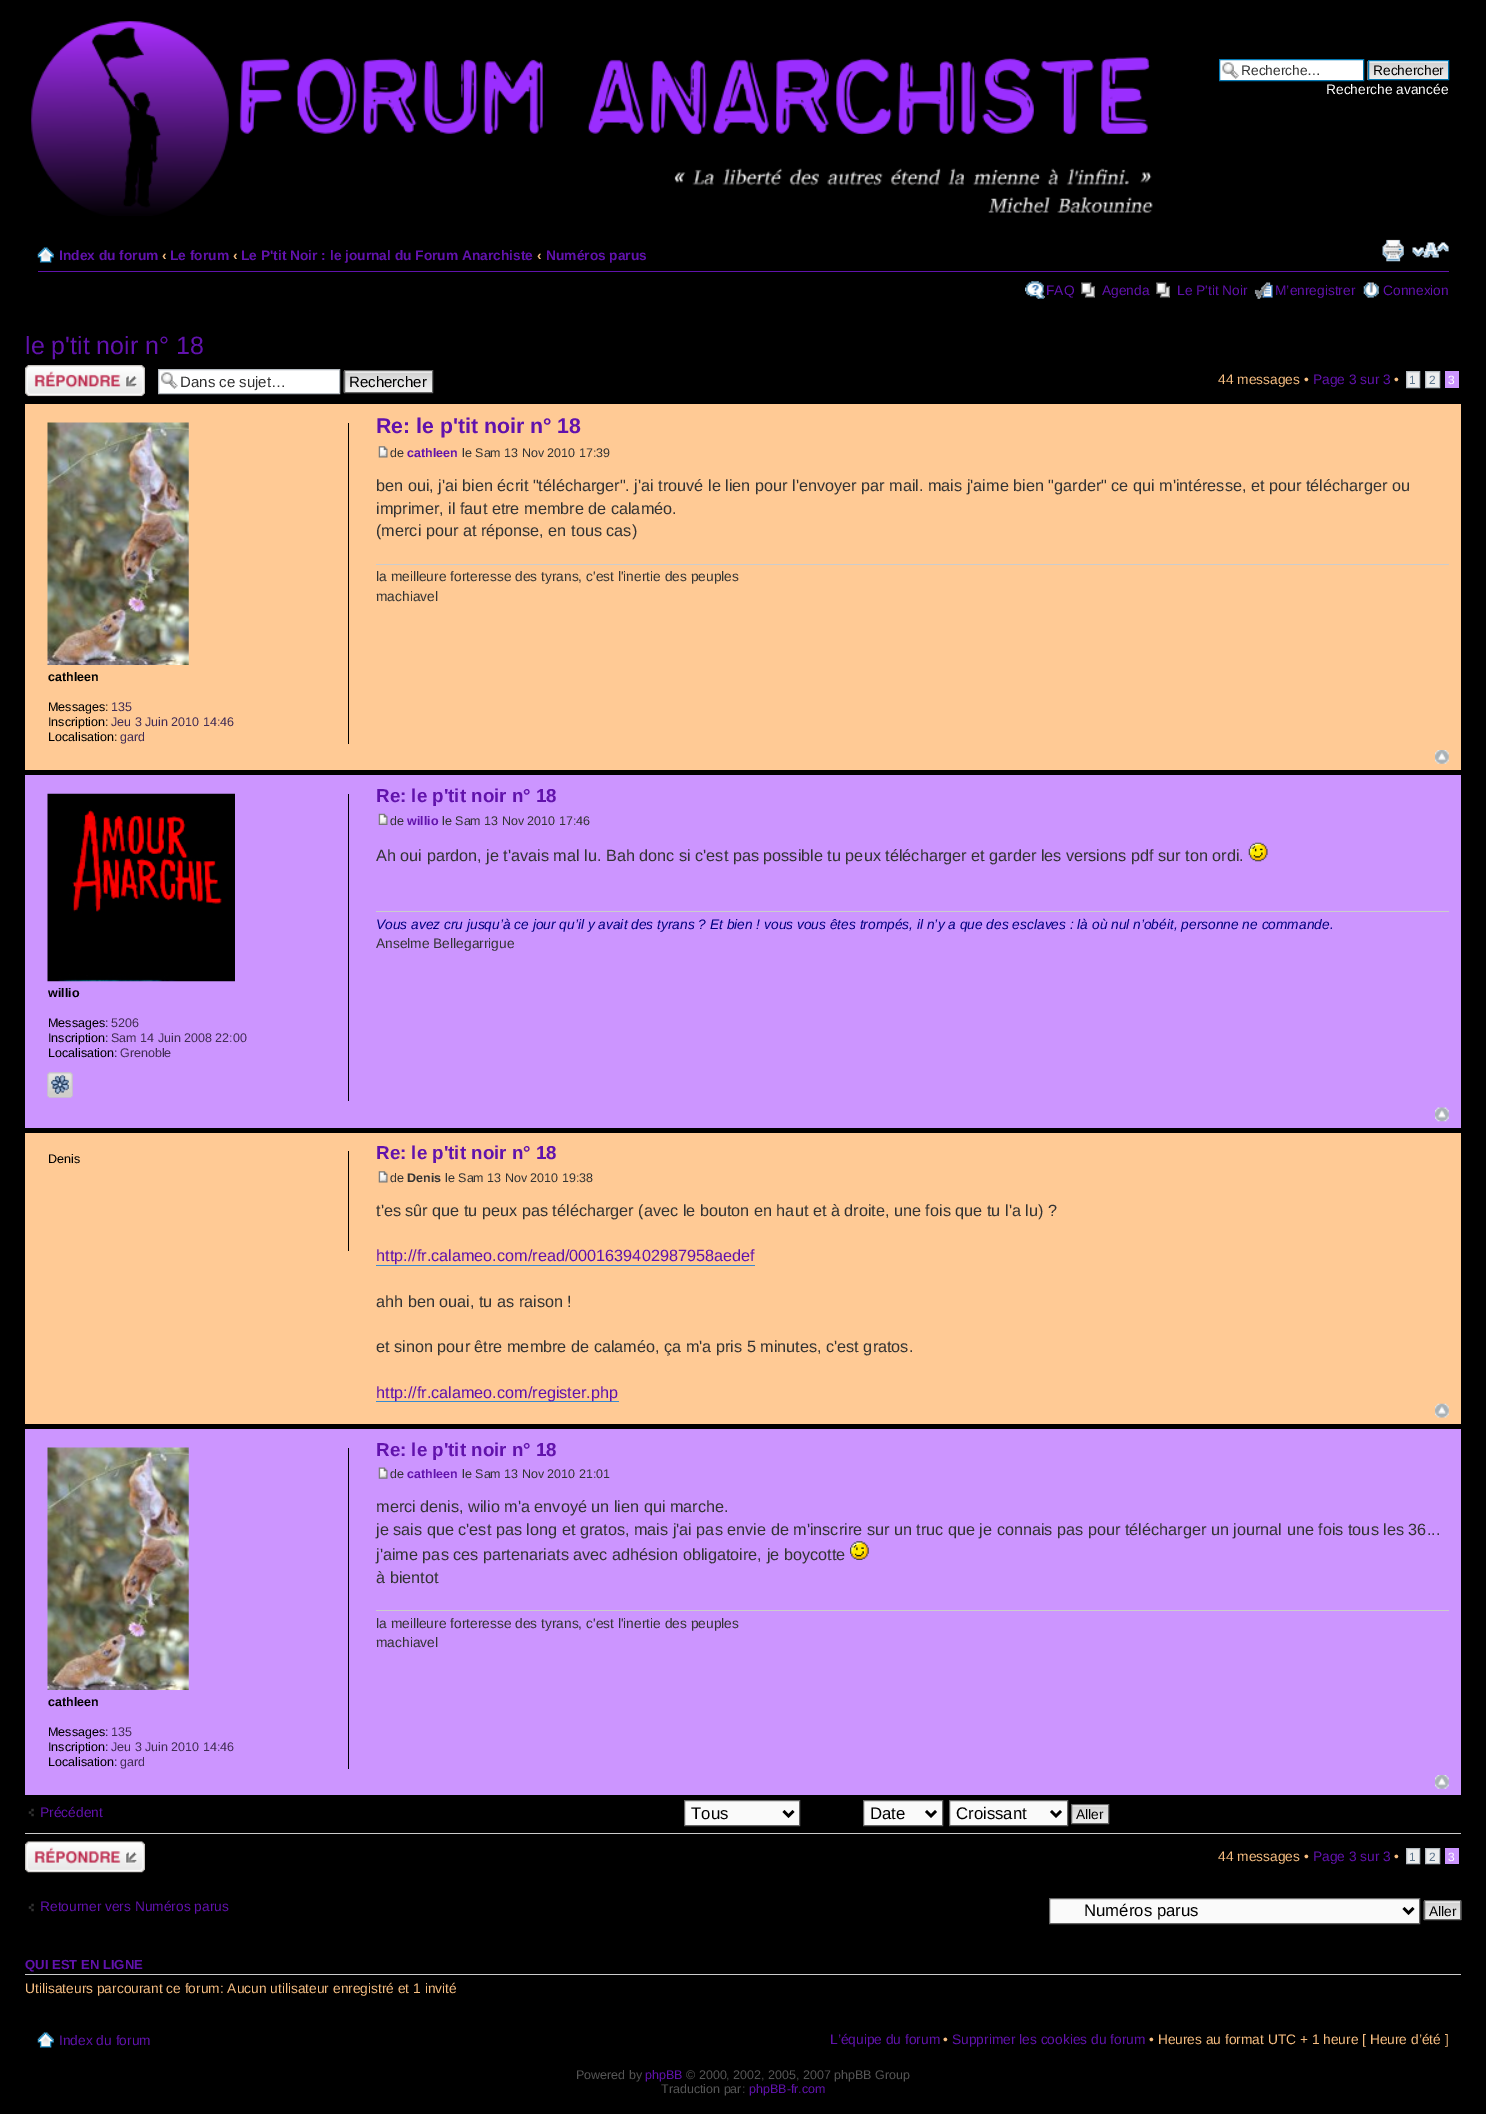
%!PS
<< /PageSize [1486 2114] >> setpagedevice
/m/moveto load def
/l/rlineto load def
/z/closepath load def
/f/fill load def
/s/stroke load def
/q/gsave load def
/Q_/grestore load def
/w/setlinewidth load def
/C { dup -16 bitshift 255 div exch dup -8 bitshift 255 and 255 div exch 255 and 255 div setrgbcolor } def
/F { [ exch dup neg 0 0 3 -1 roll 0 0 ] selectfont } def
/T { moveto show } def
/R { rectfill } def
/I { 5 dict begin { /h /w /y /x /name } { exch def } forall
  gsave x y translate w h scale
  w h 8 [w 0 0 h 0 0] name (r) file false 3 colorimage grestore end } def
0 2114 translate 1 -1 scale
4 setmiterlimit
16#000000 C
0 0 1486 2114 R
(1.rgb) 31 21 1122 195 I
16#FFFFFF C
1220 60 143 20 R
(2.rgb) 1222 62 17 17 I
16#0075B0 C
1219.5 59.5 144 21 rectstroke
/LiberationSans-Regular 13.75 F
16#333333 C
(Recherche…) 1241 75 T
(3.rgb) 1367 61 81 19 I
16#0075B0 C
1368.5 60.5 80 19 rectstroke
16#000000 C
(Rechercher) 1373 75 T
16#FFFFFF C
(Recherche avancée) 1326 94 T
16#6112AC C
38 271 1411 1 R
(4.rgb) 37 247 17 16 I
/LiberationSans-Bold 13.75 F
(Index du forum) 59 260 T
16#F7BE81 C
(‹) 162 260 T
16#6112AC C
(Le forum) 170 260 T
16#F7BE81 C
(‹) 233 260 T
16#6112AC C
(Le P'tit Noir : le journal du Forum Anarchiste) 241 260 T
16#F7BE81 C
(‹) 537 260 T
16#6112AC C
(Numéros parus) 546 260 T
(5.rgb) 1382 239 22 23 I
(6.rgb) 1412 242 37 16 I
(7.rgb) 1025 281 20 18 I
/LiberationSans-Regular 13.75 F
(FAQ) 1046 295 T
(8.rgb) 1081 282 14 16 I
(Agenda) 1102 295 T
(8.rgb) 1156 282 14 16 I
(Le P'tit Noir) 1177 295 T
(9.rgb) 1254 282 19 17 I
(M’enregistrer) 1275 295 T
(10.rgb) 1363 282 16 16 I
(Connexion) 1383 295 T
/LiberationSans-Regular 25 F
(le p'tit noir n° 18) 25 354 T
(11.rgb) 25 365 120 32 I
16#FFFFFF C
159 370 180 23 R
(12.rgb) 161 372 17 17 I
16#B4BAC0 C
158.5 369.5 181 24 rectstroke
/LiberationSans-Regular 15 F
16#333333 C
(Dans ce sujet…) 180 387 T
(13.rgb) 343 371 89 22 I
16#666666 C
344.5 370.5 88 22 rectstroke
16#000000 C
(Rechercher) 349 387 T
/LiberationSans-Regular 13.75 F
16#F7BE81 C
(44 messages •) 1218 384 T
16#6112AC C
(Page 3 sur 3) 1313 384 T
16#F7BE81 C
(•) 1394 384 T
16#ECEDEE C
1406.5 371.5 m 13 0 l 0 16 l -13 0 l z q f Q_
16#B4BAC0 C
s
/LiberationSans-Regular 12 F
16#5C758C C
(1) 1409 384 T
16#ECEDEE C
1425.5 371.5 m 14 0 l 0 16 l -14 0 l z q f Q_
16#B4BAC0 C
s
16#5C758C C
(2) 1429 384 T
16#CC95FF C
1445 371 14 17 R
16#FFFFFF C
(3) 1448 384 T
16#FFCA95 C
25 404 1436 366 R
/LiberationSans-Bold 21.25 F
16#6112AC C
(Re: le p'tit noir n° 18) 376 433 T
(14.rgb) 378 446 10 12 I
/LiberationSans-Regular 12.5 F
16#333333 C
(de) 390 457 T
/LiberationSans-Bold 12.5 F
16#6112AC C
(cathleen) 407 457 T
/LiberationSans-Regular 12.5 F
16#333333 C
(le Sam 13 Nov 2010 17:39) 462 457 T
/LiberationSans-Regular 16.25 F
(ben oui, j'ai bien écrit "télécharger". j'ai trouvé le lien pour l'envoyer par mail. mais j'aime bien "garder" ce qui m'intéresse, et pour télécharger ou) 376 491 T
(imprimer, il faut etre membre de calaméo.) 376 514 T
(\(merci pour at réponse, en tous cas\)) 376 536 T
16#CCCCCC C
376 564 1073 1 R
/LiberationSans-Regular 13.75 F
16#333333 C
(la meilleure forteresse des tyrans, c'est l'inertie des peuples) 376 581 T
(machiavel) 376 601 T
16#000000 C
348 423 1 321 R
(15.rgb) 47 422 142 243 I
/LiberationSans-Bold 12.5 F
(cathleen) 48 681 T
/LiberationSans-Regular 12.5 F
(Messages:) 48 711 T
16#422D55 C
(135) 111 711 T
16#000000 C
(Inscription:) 48 726 T
16#422D55 C
(Jeu 3 Juin 2010 14:46) 111 726 T
16#000000 C
(Localisation:) 48 741 T
16#422D55 C
(gard) 120 741 T
(16.rgb) 1435 750 14 14 I
16#CC95FF C
25 775 1436 353 R
/LiberationSans-Bold 18.75 F
16#6112AC C
(Re: le p'tit noir n° 18) 376 802 T
(17.rgb) 378 813 10 12 I
/LiberationSans-Regular 12.5 F
16#333333 C
(de) 390 825 T
/LiberationSans-Bold 12.5 F
16#6112AC C
(willio) 407 825 T
/LiberationSans-Regular 12.5 F
16#333333 C
(le Sam 13 Nov 2010 17:46) 442 825 T
/LiberationSans-Regular 16.25 F
(Ah oui pardon, je t'avais mal lu. Bah donc si c'est pas possible tu peux télécharger et garder les versions pdf sur ton ordi.) 376 861 T
(18.rgb) 1248 842 20 20 I
16#CCCCCC C
376 911 1073 1 R
/LiberationSans-Italic 13.75 F
16#000080 C
(Vous avez cru jusqu’à ce jour qu’il y avait des tyrans ? Et bien ! vous vous êtes trompés, il n’y a que des esclaves : là où nul n’obéit, personne ne commande.) 376 929 T
/LiberationSans-Regular 13.75 F
16#333333 C
(Anselme Bellegarrigue) 376 948 T
16#000000 C
348 794 1 307 R
(19.rgb) 47 793 188 189 I
/LiberationSans-Bold 12.5 F
(willio) 48 997 T
/LiberationSans-Regular 12.5 F
(Messages:) 48 1027 T
16#422D55 C
(5206) 111 1027 T
16#000000 C
(Inscription:) 48 1042 T
16#422D55 C
(Sam 14 Juin 2008 22:00) 111 1042 T
16#000000 C
(Localisation:) 48 1057 T
16#422D55 C
(Grenoble) 120 1057 T
(20.rgb) 47 1072 26 26 I
(21.rgb) 47 1072 26 26 I
(22.rgb) 1435 1107 14 15 I
16#FFCA95 C
25 1133 1436 291 R
16#000000 C
348 1151 1 100 R
(Denis) 48 1163 T
/LiberationSans-Bold 18.75 F
16#6112AC C
(Re: le p'tit noir n° 18) 376 1159 T
(23.rgb) 378 1171 10 12 I
/LiberationSans-Regular 12.5 F
16#333333 C
(de) 390 1182 T
/LiberationSans-Bold 12.5 F
(Denis) 407 1182 T
/LiberationSans-Regular 12.5 F
(le Sam 13 Nov 2010 19:38) 445 1182 T
/LiberationSans-Regular 16.25 F
(t'es sûr que tu peux pas télécharger \(avec le bouton en haut et à droite, une fois que tu l'a lu\) ?) 376 1216 T
16#6112AC C
(http://fr.calameo.com/read/0001639402987958aedef) 376 1261 T
16#368AD2 C
376 1265 379 1 R
16#333333 C
(ahh ben ouai, tu as raison !) 376 1307 T
(et sinon pour être membre de calaméo, ça m'a pris 5 minutes, c'est gratos.) 376 1352 T
16#368AD2 C
376 1401 243 1 R
16#6112AC C
(http://fr.calameo.com/register.php) 376 1398 T
(24.rgb) 1435 1403 14 15 I
16#CC95FF C
25 1429 1436 366 R
/LiberationSans-Bold 18.75 F
16#6112AC C
(Re: le p'tit noir n° 18) 376 1456 T
(25.rgb) 378 1467 10 12 I
/LiberationSans-Regular 12.5 F
16#333333 C
(de) 390 1478 T
/LiberationSans-Bold 12.5 F
16#6112AC C
(cathleen) 407 1478 T
/LiberationSans-Regular 12.5 F
16#333333 C
(le Sam 13 Nov 2010 21:01) 462 1478 T
/LiberationSans-Regular 16.25 F
(merci denis, wilio m'a envoyé un lien qui marche.) 376 1512 T
(je sais que c'est pas long et gratos, mais j'ai pas envie de m'inscrire sur un truc que je connais pas pour télécharger un journal une fois tous les 36...) 376 1535 T
(j'aime pas ces partenariats avec adhésion obligatoire, je boycotte) 376 1560 T
(26.rgb) 850 1541 19 19 I
(à bientot) 376 1583 T
16#CCCCCC C
376 1610 1073 1 R
/LiberationSans-Regular 13.75 F
16#333333 C
(la meilleure forteresse des tyrans, c'est l'inertie des peuples) 376 1628 T
(machiavel) 376 1647 T
16#000000 C
348 1448 1 321 R
(27.rgb) 47 1447 142 243 I
/LiberationSans-Bold 12.5 F
(cathleen) 48 1706 T
/LiberationSans-Regular 12.5 F
(Messages:) 48 1736 T
16#422D55 C
(135) 111 1736 T
16#000000 C
(Inscription:) 48 1751 T
16#422D55 C
(Jeu 3 Juin 2010 14:46) 111 1751 T
16#000000 C
(Localisation:) 48 1766 T
16#422D55 C
(gard) 120 1766 T
(28.rgb) 1435 1775 14 14 I
(29.rgb) 28 1808 6 9 I
/LiberationSans-Regular 13.75 F
16#6112AC C
(Précédent) 40 1817 T
16#FAFAFA C
684.5 1800.5 m 115 0 l 0 25 l -115 0 l z q f Q_
16#666666 C
s
16#000000 C
2.5 w
783.5 1811 m 5 5 l 5 -5 l s
/LiberationSans-Regular 16.75 F
(Tous) 691 1819 T
16#FAFAFA C
863.5 1800.5 m 79 0 l 0 25 l -79 0 l z q f Q_
16#666666 C
1 w
s
16#000000 C
2.5 w
926 1811 m 5 5 l 5 -5 l s
(Date) 870 1819 T
16#FAFAFA C
949.5 1800.5 m 118 0 l 0 25 l -118 0 l z q f Q_
16#666666 C
1 w
s
16#000000 C
2.5 w
1051 1811 m 5 5 l 5 -5 l s
(Croissant) 956 1819 T
(30.rgb) 1072 1805 36 18 I
16#666666 C
1 w
1071.5 1804.5 37 19 rectstroke
/LiberationSans-Regular 13.75 F
16#000000 C
(Aller) 1076 1819 T
16#CCCCCC C
25 1833 1436 1 R
(31.rgb) 25 1841 120 32 I
16#F7BE81 C
(44 messages •) 1218 1861 T
16#6112AC C
(Page 3 sur 3) 1313 1861 T
16#F7BE81 C
(•) 1394 1861 T
16#ECEDEE C
1406.5 1848.5 m 13 0 l 0 15 l -13 0 l z q f Q_
16#B4BAC0 C
s
/LiberationSans-Regular 12 F
16#5C758C C
(1) 1409 1861 T
16#ECEDEE C
1425.5 1848.5 m 14 0 l 0 15 l -14 0 l z q f Q_
16#B4BAC0 C
s
16#5C758C C
(2) 1429 1861 T
16#CC95FF C
1445 1848 14 16 R
16#FFFFFF C
(3) 1448 1861 T
(29.rgb) 28 1903 6 9 I
/LiberationSans-Regular 13.75 F
16#6112AC C
(Retourner vers Numéros parus) 40 1911 T
16#FAFAFA C
1049.5 1898.5 m 370 0 l 0 25 l -370 0 l z q f Q_
16#666666 C
s
16#000000 C
2.5 w
1403.5 1908 m 5 5 l 5 -5 l s
/LiberationSans-Regular 16.75 F
(Numéros parus) 1084 1916 T
(32.rgb) 1423 1901 39 19 I
16#666666 C
1 w
1424.5 1900.5 36 19 rectstroke
/LiberationSans-Regular 13.75 F
16#000000 C
(Aller) 1429 1916 T
16#CCCCCC C
25 1974 1436 1 R
/LiberationSans-Bold 13.1 F
16#6112AC C
(QUI EST EN LIGNE) 25 1969 T
/LiberationSans-Regular 13.75 F
16#F7BE81 C
(Utilisateurs parcourant ce forum: Aucun utilisateur enregistré et 1 invité) 25 1993 T
(4.rgb) 37 2032 17 16 I
16#6112AC C
(Index du forum) 59 2045 T
(L’équipe du forum) 830 2044 T
16#F7BE81 C
(•) 943 2044 T
16#6112AC C
(Supprimer les cookies du forum) 952 2044 T
16#F7BE81 C
(• Heures au format UTC + 1 heure [ Heure d’été ]) 1149 2044 T
/LiberationSans-Regular 12.5 F
16#555555 C
(Powered by) 576 2079 T
16#6112AC C
(phpBB) 645 2079 T
16#555555 C
(© 2000, 2002, 2005, 2007 phpBB Group) 686 2079 T
(Traduction par:) 661 2093 T
16#6112AC C
(phpBB-fr.com) 749 2093 T
showpage
